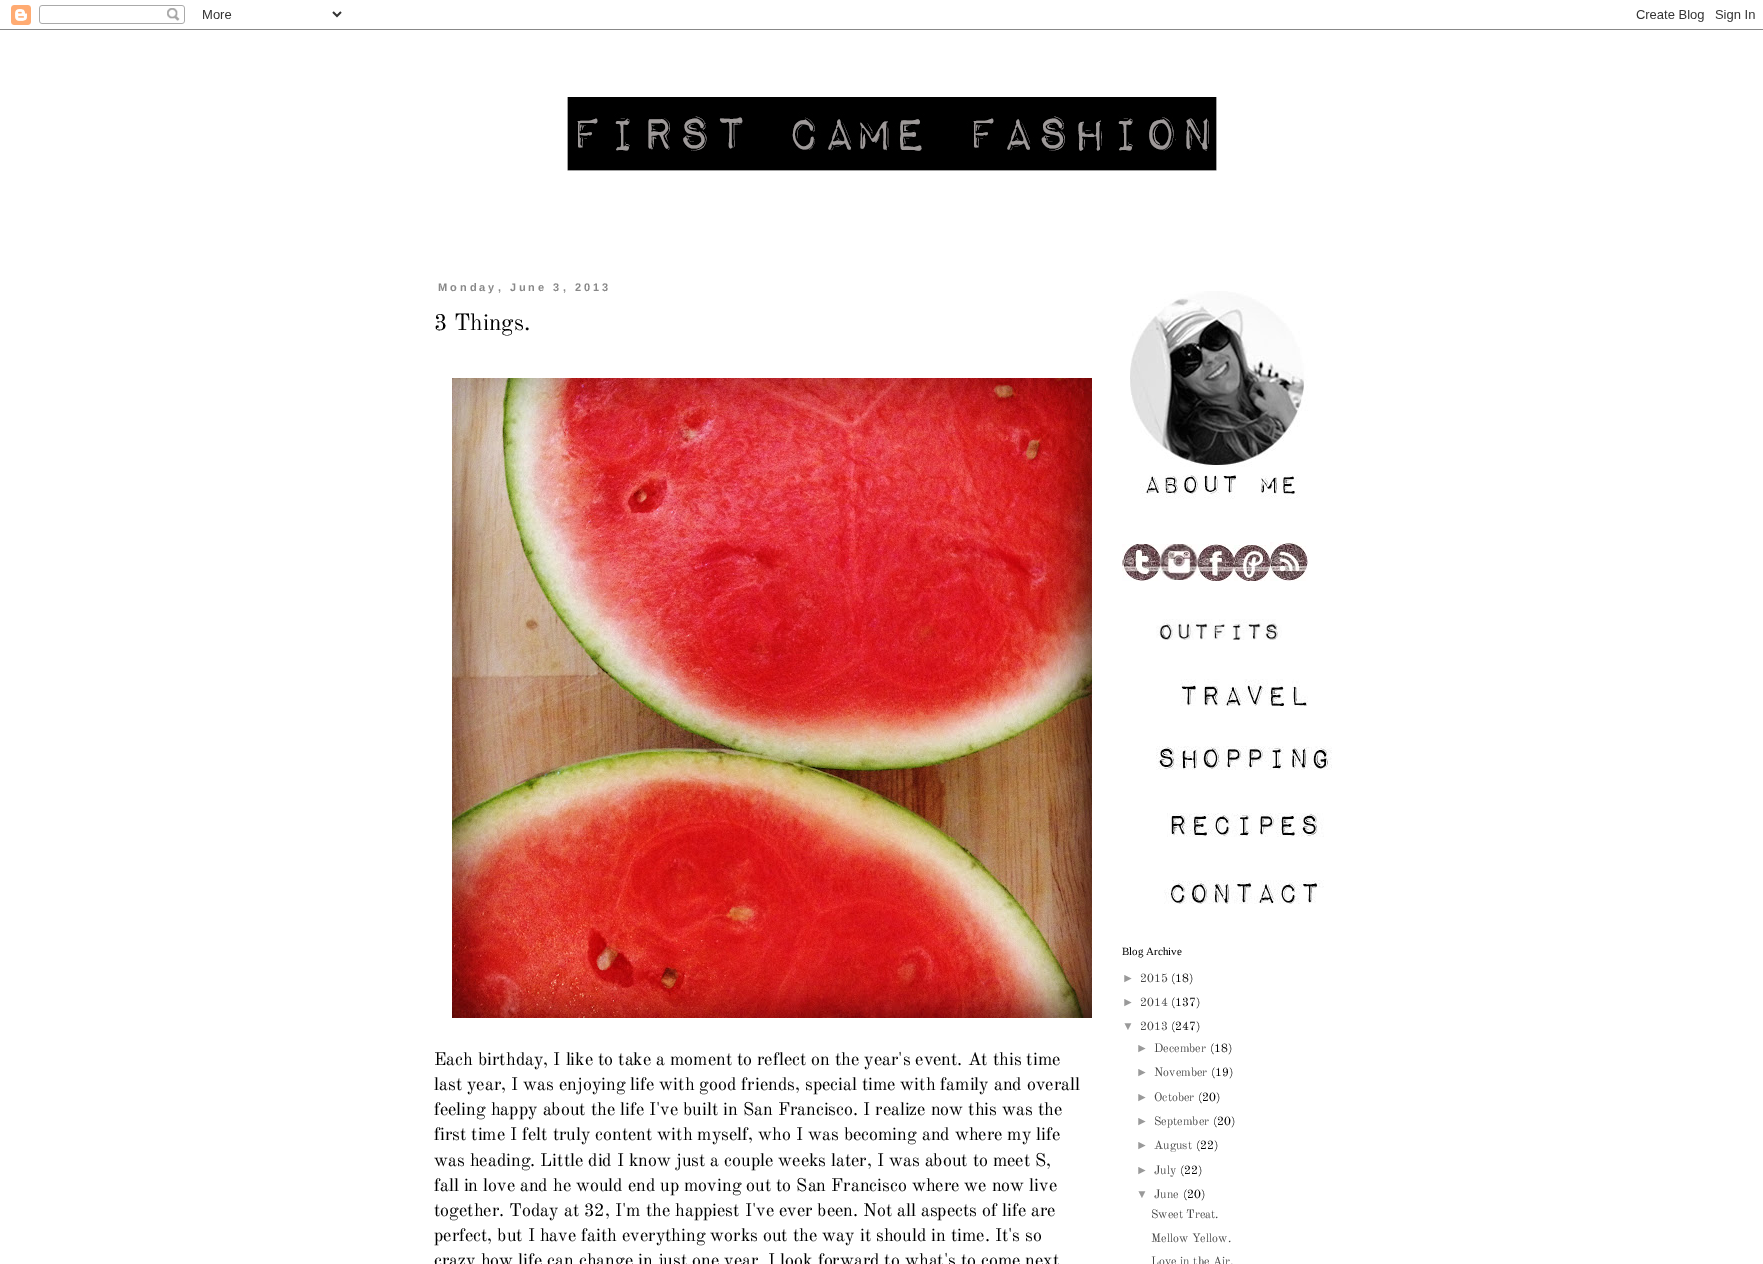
%!PS
<< /PageSize [1763 1264] >> setpagedevice
/m/moveto load def
/C { dup -16 bitshift 255 div exch dup -8 bitshift 255 and 255 div exch 255 and 255 div setrgbcolor } def
/F { [ exch dup neg 0 0 3 -1 roll 0 0 ] selectfont } def
/T { moveto show } def
/R { rectfill } def
/I { 5 dict begin { /h /w /y /x /name } { exch def } forall
  gsave x y translate w h scale
  w h 8 [w 0 0 h 0 0] name (r) file false 3 colorimage grestore end } def
0 1264 translate 1 -1 scale
4 setmiterlimit
16#FFFFFF C
0 0 1763 1264 R
(1.rgb) 0 5 1763 25 I
(2.rgb) 567 97 650 74 I
/LiberationSans-Bold 11 F
16#888888 C
438 291 m 3 0 (Monday, June 3, 2013) ashow
/OldStandardTT-Regular 23 F
16#000000 C
(3 Things.) 434 330 T
(3.rgb) 452 378 640 640 I
/OldStandardTT-Regular 18 F
(Each birthday, I like to take a moment to reflect on the year's event. At this time) 434 1065 T
(last year, I was enjoying life with good friends, special time with family and overall) 434 1090 T
(feeling happy about the life I've built in San Francisco. I realize now this was the) 434 1115 T
(first time I felt truly content with myself, who I was becoming and where my life) 434 1140 T
(was heading. Little did I know just a couple weeks later, I was about to meet S,) 434 1166 T
(fall in love and he would end up moving out to San Francisco where we now live) 434 1191 T
(together. Today at 32, I'm the happiest I've ever been. Not all aspects of life are) 434 1216 T
(perfect, but I have faith everything works out the way it should in time. It's so) 434 1241 T
(crazy how life can change in just one year. I look forward to what's to come next) 434 1266 T
(4.rgb) 1130 291 178 208 I
(5.rgb) 1122 544 38 37 I
(6.rgb) 1160 544 38 36 I
(7.rgb) 1198 544 36 37 I
(8.rgb) 1234 545 36 36 I
(9.rgb) 1270 542 39 39 I
(10.rgb) 1156 619 126 21 I
(11.rgb) 1180 679 128 27 I
(12.rgb) 1156 746 176 24 I
(13.rgb) 1167 813 157 24 I
(14.rgb) 1164 880 160 24 I
/LiberationSerif-Regular 11 F
(Blog Archive) 1122 955 T
/LiberationSans-Regular 12 F
16#999999 C
(►) 1122 982 T
/OldStandardTT-Regular 12 F
16#444444 C
(2015) 1140 982 T
16#000000 C
(\(18\)) 1171 982 T
/LiberationSans-Regular 12 F
16#999999 C
(►) 1122 1006 T
/OldStandardTT-Regular 12 F
16#444444 C
(2014) 1140 1006 T
16#000000 C
(\(137\)) 1171 1006 T
/LiberationSans-Regular 12 F
16#999999 C
(▼) 1122 1030 T
/OldStandardTT-Regular 12 F
16#444444 C
(2013) 1140 1030 T
16#000000 C
(\(247\)) 1171 1030 T
/LiberationSans-Regular 12 F
16#999999 C
(►) 1136 1052 T
/OldStandardTT-Regular 12 F
16#444444 C
(December) 1154 1052 T
16#000000 C
(\(18\)) 1210 1052 T
/LiberationSans-Regular 12 F
16#999999 C
(►) 1136 1076 T
/OldStandardTT-Regular 12 F
16#444444 C
(November) 1154 1076 T
16#000000 C
(\(19\)) 1211 1076 T
/LiberationSans-Regular 12 F
16#999999 C
(►) 1136 1101 T
/OldStandardTT-Regular 12 F
16#444444 C
(October) 1154 1101 T
16#000000 C
(\(20\)) 1198 1101 T
/LiberationSans-Regular 12 F
16#999999 C
(►) 1136 1125 T
/OldStandardTT-Regular 12 F
16#444444 C
(September) 1154 1125 T
16#000000 C
(\(20\)) 1213 1125 T
/LiberationSans-Regular 12 F
16#999999 C
(►) 1136 1149 T
/OldStandardTT-Regular 12 F
16#444444 C
(August) 1154 1149 T
16#000000 C
(\(22\)) 1196 1149 T
/LiberationSans-Regular 12 F
16#999999 C
(►) 1136 1174 T
/OldStandardTT-Regular 12 F
16#444444 C
(July) 1154 1174 T
16#000000 C
(\(22\)) 1180 1174 T
/LiberationSans-Regular 12 F
16#999999 C
(▼) 1136 1198 T
/OldStandardTT-Regular 12 F
16#444444 C
(June) 1154 1198 T
16#000000 C
(\(20\)) 1183 1198 T
16#444444 C
(Sweet Treat.) 1151 1218 T
(Mellow Yellow.) 1151 1242 T
(Love in the Air.) 1151 1265 T
showpage
